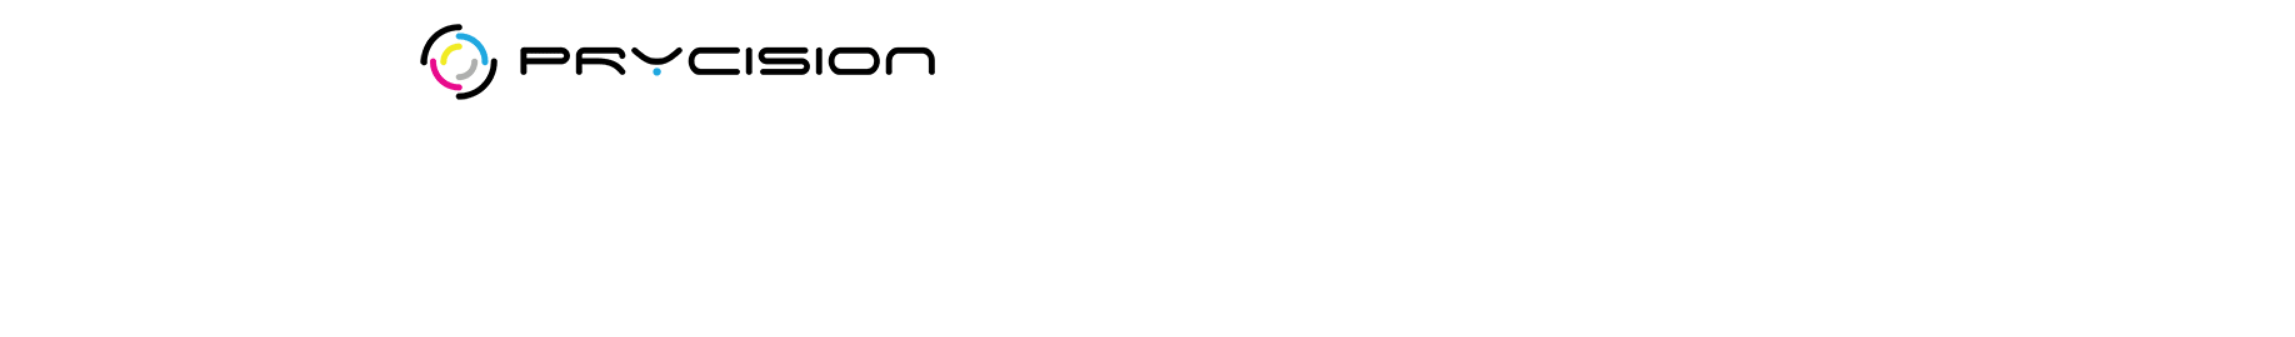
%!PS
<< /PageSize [2295 337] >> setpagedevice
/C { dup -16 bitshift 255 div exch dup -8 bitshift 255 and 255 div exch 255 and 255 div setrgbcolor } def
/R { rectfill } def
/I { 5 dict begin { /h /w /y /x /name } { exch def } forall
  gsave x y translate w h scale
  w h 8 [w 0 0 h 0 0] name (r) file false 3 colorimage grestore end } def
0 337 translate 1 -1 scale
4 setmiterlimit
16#FFFFFF C
0 0 2295 337 R
(1.rgb) 419 23 517 78 I
showpage
